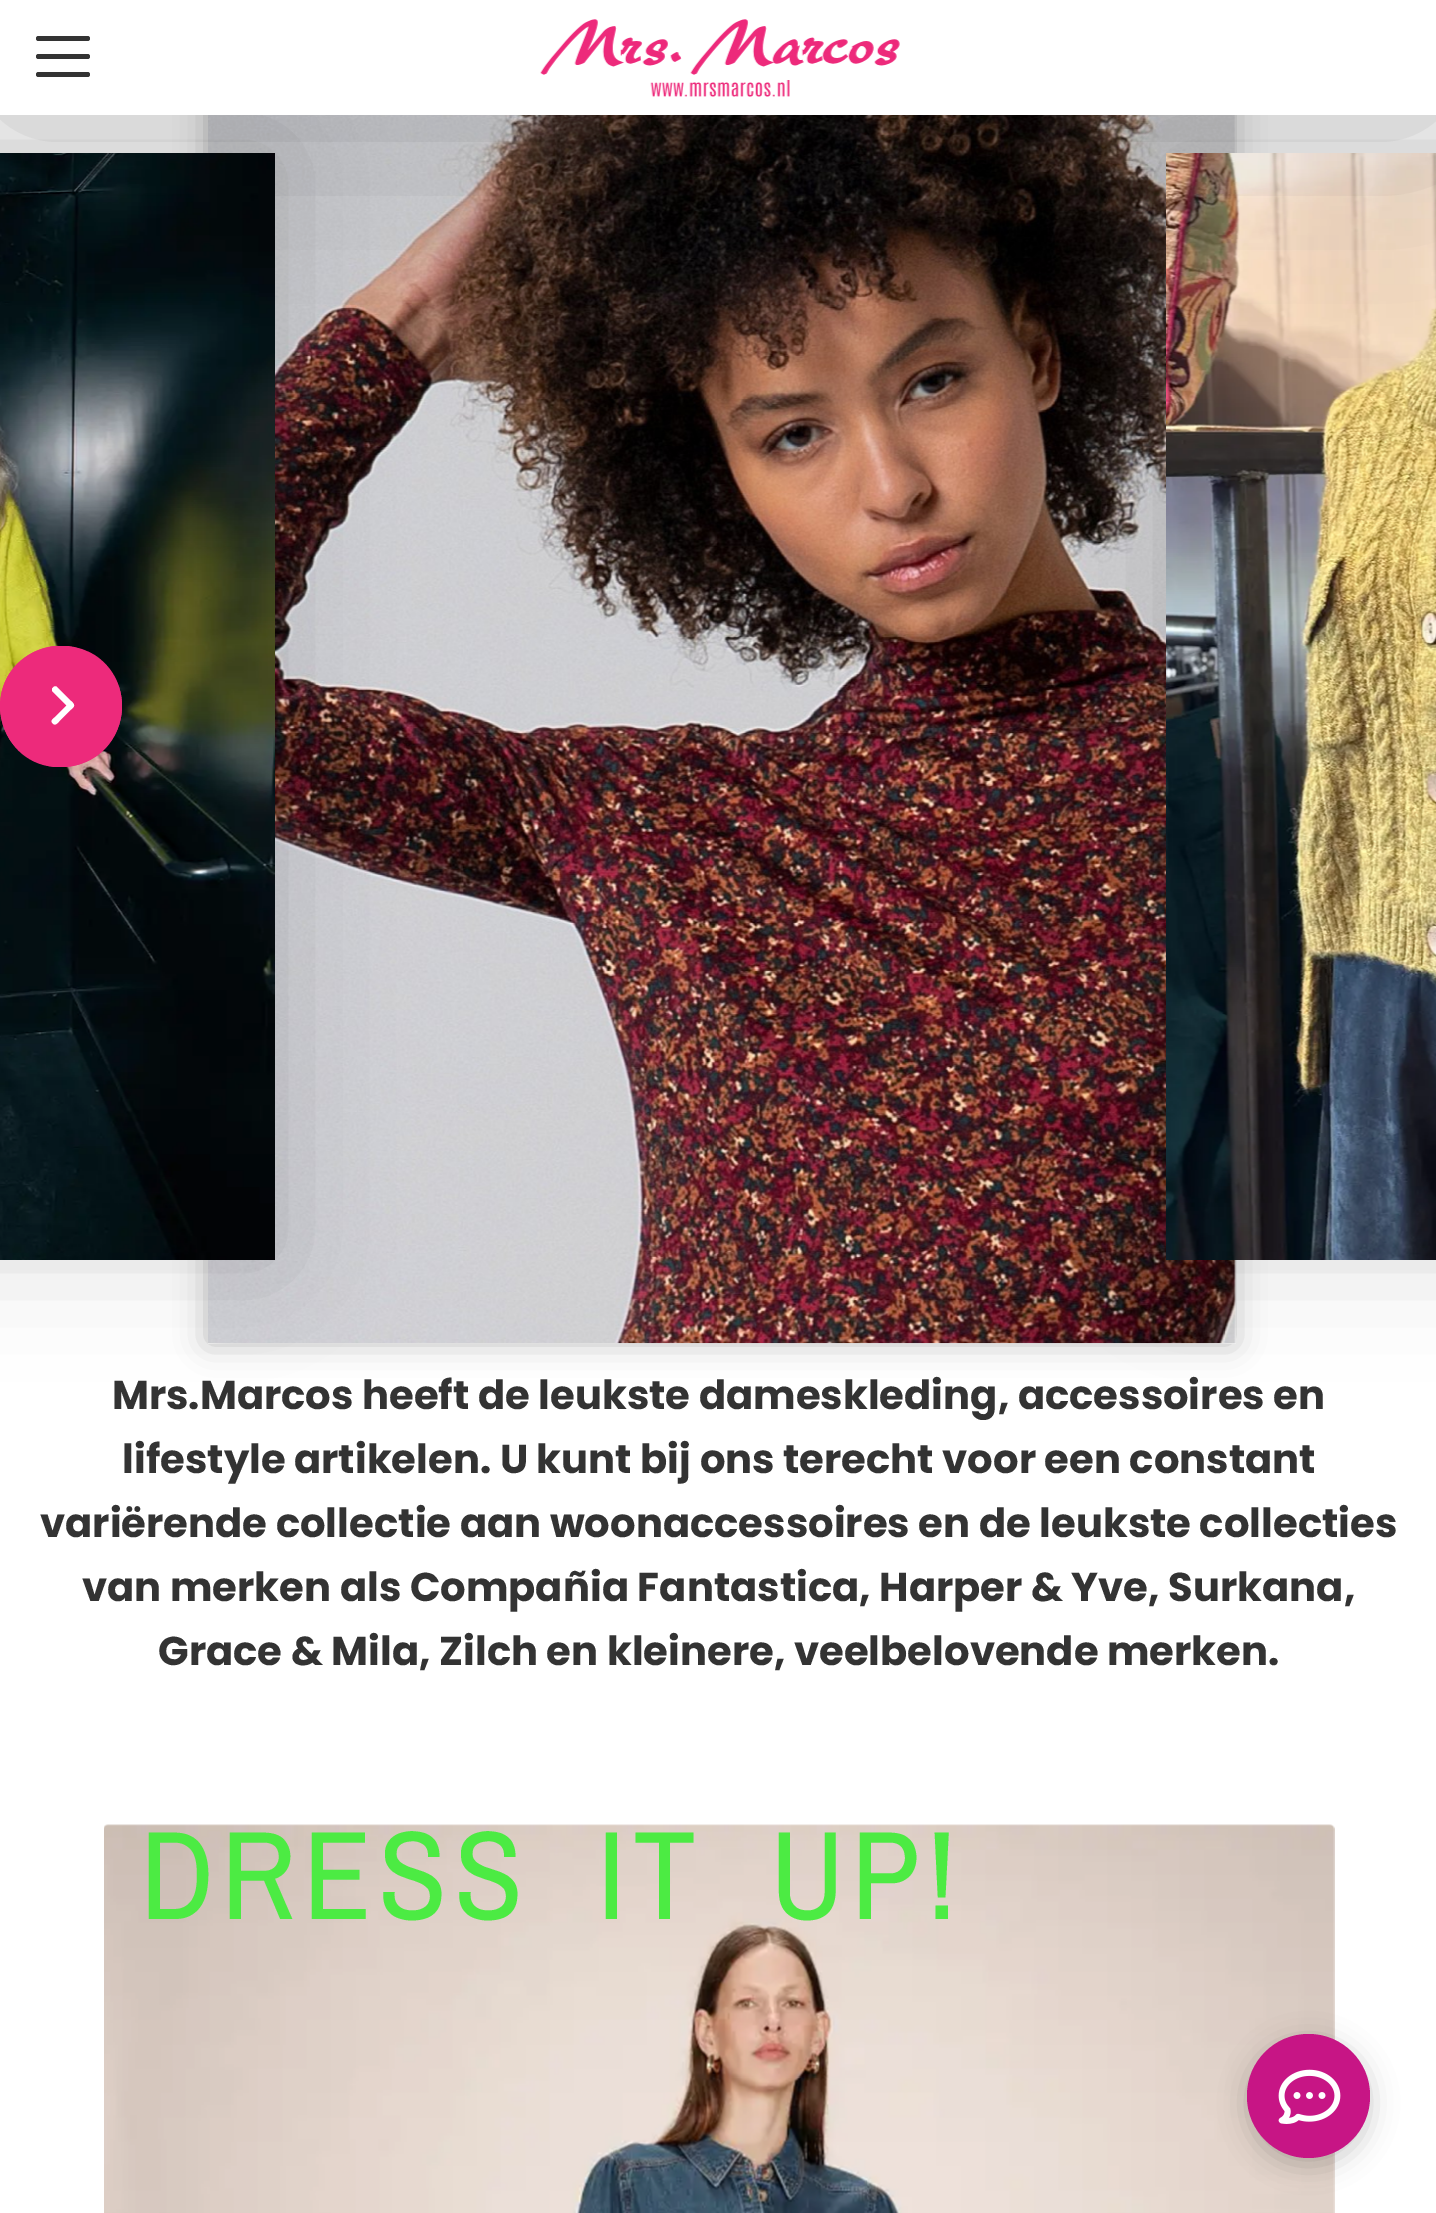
%!PS
<< /PageSize [1436 2213] /PageUsesTransparency true >> setpagedevice
/m/moveto load def
/l/rlineto load def
/c/rcurveto load def
/z/closepath load def
/f/fill load def
/q/gsave load def
/Q_/grestore load def
/C { dup -16 bitshift 255 div exch dup -8 bitshift 255 and 255 div exch 255 and 255 div setrgbcolor } def
/F { [ exch dup neg 0 0 3 -1 roll 0 0 ] selectfont } def
/T { moveto show } def
/R { rectfill } def
/A { dup .setfillconstantalpha .setstrokeconstantalpha } def
/Q { 5 dict begin { /r /h /w /y /x } { exch def } forall
  x r add y moveto x w add y 2 copy h add r arct x w add y h add x 1 index r arct
  x y h add x y r arct x y 2 copy exch w add exch r arct closepath end } def
/S { 12 dict begin { /a /b /q /h /w /y /x } { exch def } forall gsave /was 0 def
  9 -2 -9 { dup b mul 4 div /e exch def 1 sub .425 mul 2.718 exch exp 1 add a .99 .min exch div /now exch def
    1 1 now sub 1 was sub div sub A /was now def
    w h .min e 2 mul add 0 gt { x e sub y e sub w e 2 mul add h e 2 mul add
      q e add b .6 mul add w h .min 2 div e add .min 0 .max Q fill } if } for grestore end } def
/I { 5 dict begin { /h /w /y /x /name } { exch def } forall
  gsave x y translate w h scale
  w h 8 [w 0 0 h 0 0] name (r) file false 3 colorimage grestore end } def
0 .pushpdf14devicefilter
0 2213 translate 1 -1 scale
4 setmiterlimit
16#FFFFFF C
0 0 1436 2213 R
16#000000 C
207 70 1026 1273 0 15.5 .25 S
(4.rgb) 208 115 1028 1229 I
-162 153 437 1107 0 54 .15 S
(2.rgb) 0 153 275 1107 I
1166 153 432 1107 0 54 .15 S
(3.rgb) 1166 153 270 1107 I
0 0 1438 115 0 108 .2 S
16#FFFFFF C
0 0 1436 115 R
16#333333 C
36 36 54 5 2.5 Q f
36 54 54 5 2.5 Q f
36 72 54 5 2.5 Q f
(1.rgb) 540 19 360 78 I
16#ED2A7B C
61 767 m -34 0 -61 -27 -61 -61 c 0 -33 27 -60 61 -60 c 33 0 61 27 61 60 c 0 34 -28 61 -61 61 c z eofill
q
0 646 122 121 rectclip
55 767 m -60 -5 -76 -88 -21 -115 c 8 -4 23 -8 33 -6 c 10 1 20 4 29 10 c 42 29 31 96 -19 109 c -7 2 -14 2 -22 2 c z f
Q_
16#FFFFFF C
66.5 705.5 m -12 12 l -1 1 -4 3 -2.5 5 c 3 4 4.5 1.5 7.5 -1.5 c 11.5 -11.5 l .5 -.5 3.5 -2.5 3 -4.5 c 0 -1.5 -2.5 -3.5 -3 -4 c -11.5 -11.5 l -2.5 -2 -3.5 -5 -6.5 -2 c -.5 .5 -1 1 -1 2 c 0 1.5 l z f
/Poppins-Bold 40.15 F
16#333333 C
(Mrs.Marcos heeft de leukste dameskleding, accessoires en) 112 1409 T
(lifestyle artikelen. U kunt bij ons terecht voor een constant) 122 1473 T
(variërende collectie aan woonaccessoires en de leukste collecties) 40 1537 T
(van merken als Compañia Fantastica, Harper & Yve, Surkana,) 82 1601 T
(Grace & Mila, Zilch en kleinere, veelbelovende merken.) 158 1665 T
(5.rgb) 104 1824 1231 389 I
/ArchivoNarrow-Regular 126 F
16#4CEB43 C
140 1919 m 32 0 32 6.75 0 (DRESS IT UP!) awidthshow
16#000000 C
1247 2041 123 124 61.5 13.5 .2 S
16#C71585 C
1247 2034 123 124 61.5 Q f
(6.rgb) 1278 2069 63 55 I
.poppdf14devicefilter showpage
